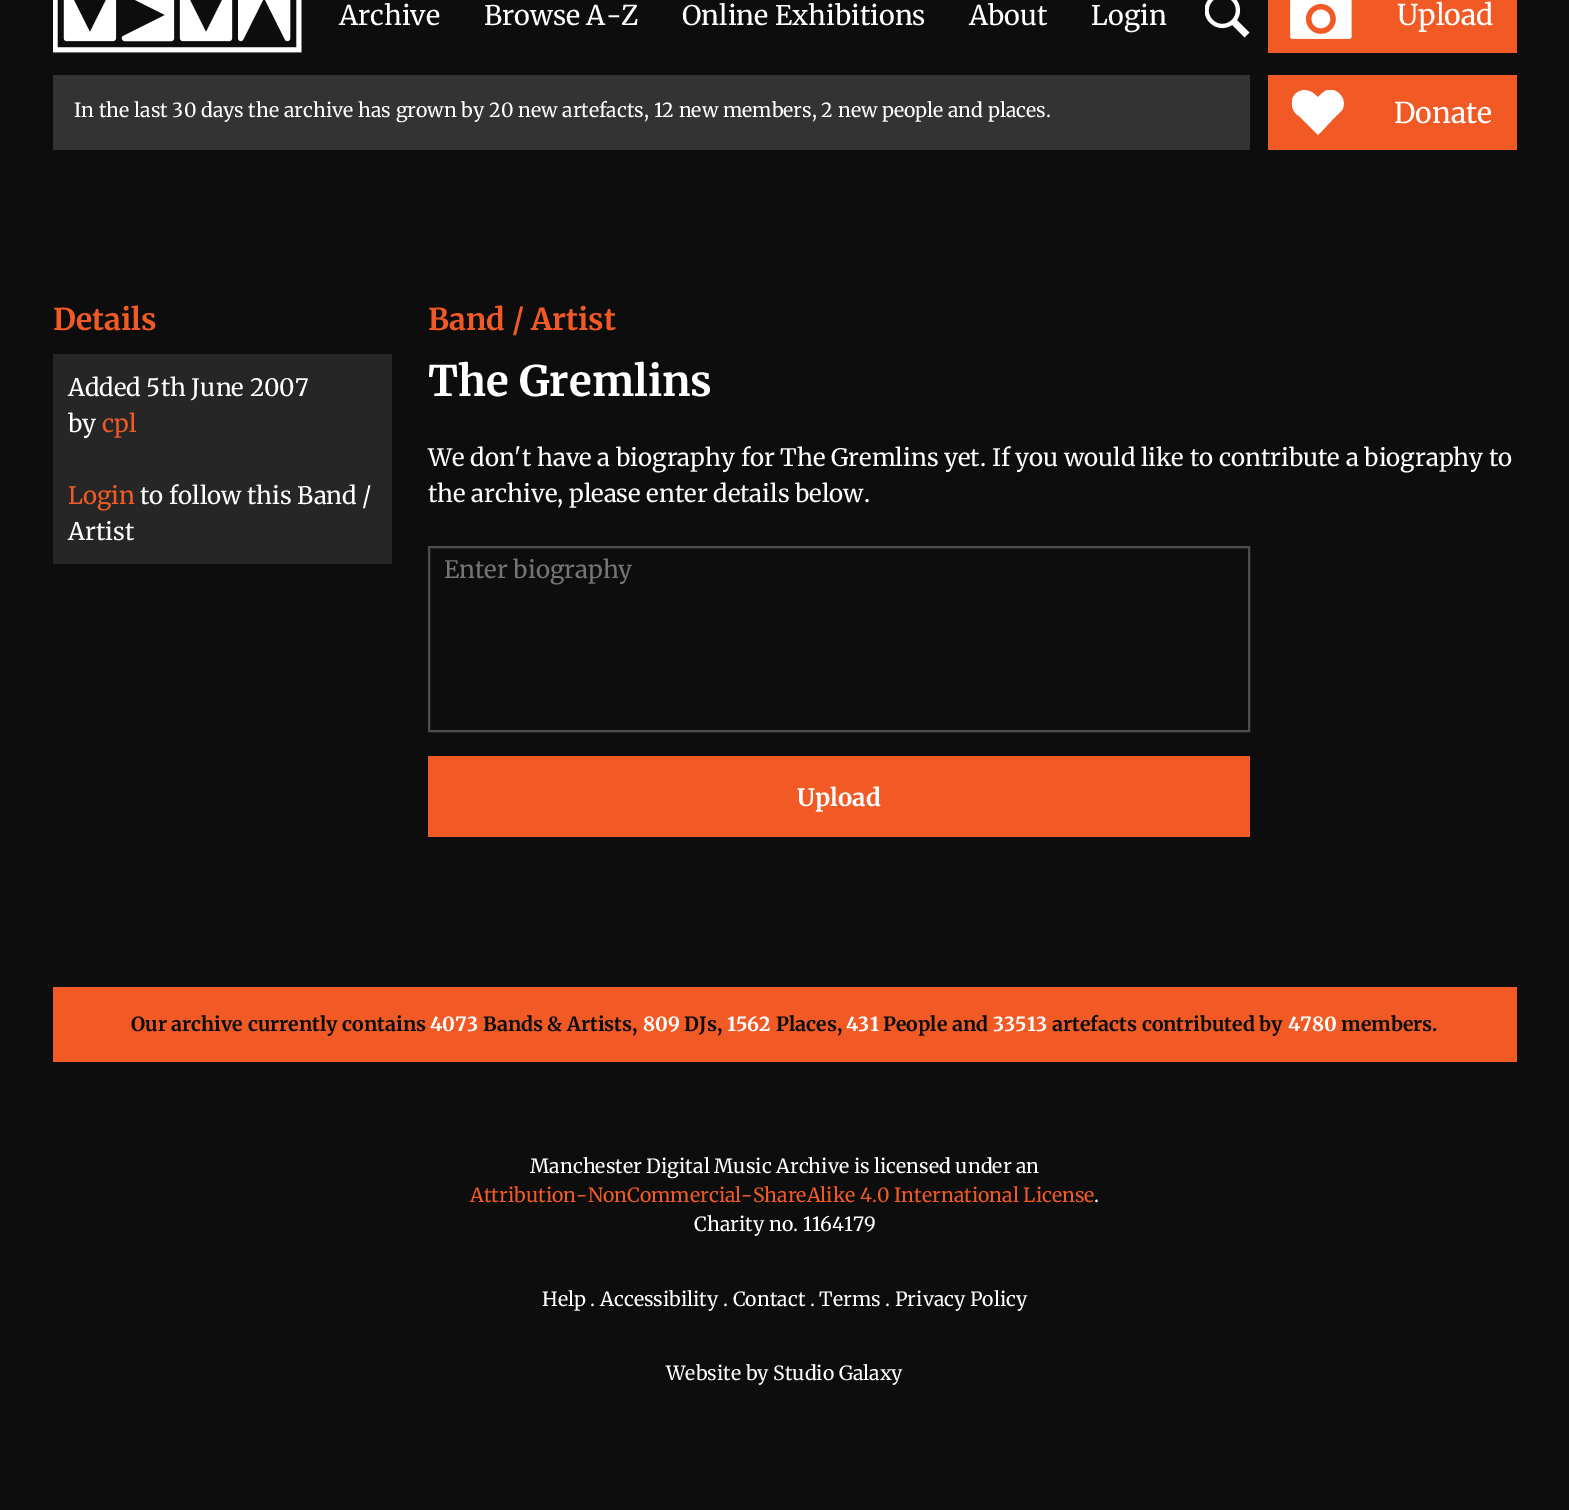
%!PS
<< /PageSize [1569 1510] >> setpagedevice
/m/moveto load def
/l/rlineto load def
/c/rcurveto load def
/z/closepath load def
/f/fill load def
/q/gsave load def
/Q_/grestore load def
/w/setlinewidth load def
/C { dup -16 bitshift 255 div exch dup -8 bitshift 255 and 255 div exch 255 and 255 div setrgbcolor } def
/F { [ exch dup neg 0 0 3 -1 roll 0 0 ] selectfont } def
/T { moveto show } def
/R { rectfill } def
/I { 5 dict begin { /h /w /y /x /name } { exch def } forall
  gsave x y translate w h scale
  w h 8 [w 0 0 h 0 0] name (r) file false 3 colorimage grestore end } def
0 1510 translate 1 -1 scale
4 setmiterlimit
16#0D0D0D C
0 0 1569 1510 R
(1.rgb) 53 0 249 53 I
/Merriweather-Regular 27 F
16#FFFFFF C
(Archive) 339 25 T
(Browse A-Z) 484 25 T
(Online Exhibitions) 682 25 T
(About) 969 25 T
(Login) 1091 25 T
(2.rgb) 1205 0 45 38 I
16#F15A25 C
1268 0 249 53 R
(3.rgb) 1290 0 62 39 I
/Merriweather-Regular 28.5 F
16#FFFFFF C
(Upload) 1397 25 T
16#333333 C
53 75 1197 75 R
/Merriweather-Regular 19.5 F
16#FFFFFF C
(In the last 30 days the archive has grown by 20 new artefacts, 12 new members, 2 new people and places.) 74 117 T
16#F15A25 C
1268 75 249 75 R
q
1292 90 52 45 rectclip
16#FFFFFF C
1299 116 m 19 19 l 18 -19 l 3 -3 6 -5 7 -8 c 4 -11 -8 -22 -18 -17 c -3 2 -5 4 -7 6 c -3 -2 -5 -5 -9 -6 c -11 -4 -21 7 -16 18 c 1 3 3 5 6 7 c z f
Q_
/Merriweather-Regular 28.5 F
16#FFFFFF C
(Donate) 1394 123 T
/Merriweather-Bold 30 F
16#F15A25 C
(Details) 53 330 T
16#262626 C
53 354 339 210 R
/Merriweather-Regular 24 F
16#FFFFFF C
(Added 5th June 2007) 68 396 T
(by) 68 432 T
16#F15A25 C
(cpl) 102 432 T
(Login) 68 504 T
16#FFFFFF C
(to follow this Band /) 140 504 T
(Artist) 68 540 T
/Merriweather-Bold 30 F
16#F15A25 C
(Band / Artist) 428 330 T
/Merriweather-Bold 42 F
16#FFFFFF C
(The Gremlins) 428 396 T
/Merriweather-Regular 24 F
(We don't have a biography for The Gremlins yet. If you would like to contribute a biography to) 428 466 T
(the archive, please enter details below.) 428 502 T
16#4D4D4D C
2 w
429 547 820 184 rectstroke
16#757575 C
(Enter biography) 444 578 T
16#F15A25 C
428 756 822 81 R
/Merriweather-Bold 24 F
16#FFFFFF C
(Upload) 797 806 T
16#F15A25 C
53 987 1464 75 R
/Merriweather-Bold 19.5 F
16#0D0D0D C
(Our archive currently contains) 131 1031 T
16#FFFFFF C
(4073) 430 1031 T
16#0D0D0D C
(Bands & Artists,) 483 1031 T
16#FFFFFF C
(809) 643 1031 T
16#0D0D0D C
(DJs,) 684 1031 T
16#FFFFFF C
(1562) 727 1031 T
16#0D0D0D C
(Places,) 776 1031 T
16#FFFFFF C
(431) 846 1031 T
16#0D0D0D C
(People and) 883 1031 T
16#FFFFFF C
(33513) 993 1031 T
16#0D0D0D C
(artefacts contributed by) 1052 1031 T
16#FFFFFF C
(4780) 1288 1031 T
16#0D0D0D C
(members.) 1341 1031 T
/Merriweather-Regular 19.5 F
16#FFFFFF C
(Manchester Digital Music Archive is licensed under an) 530 1173 T
16#F15A25 C
(Attribution-NonCommercial-ShareAlike 4.0 International License) 470 1202 T
16#FFFFFF C
(.) 1094 1202 T
(Charity no. 1164179) 694 1231 T
(Help . Accessibility . Contact . Terms . Privacy Policy) 542 1306 T
(Website by Studio Galaxy) 666 1380 T
showpage
